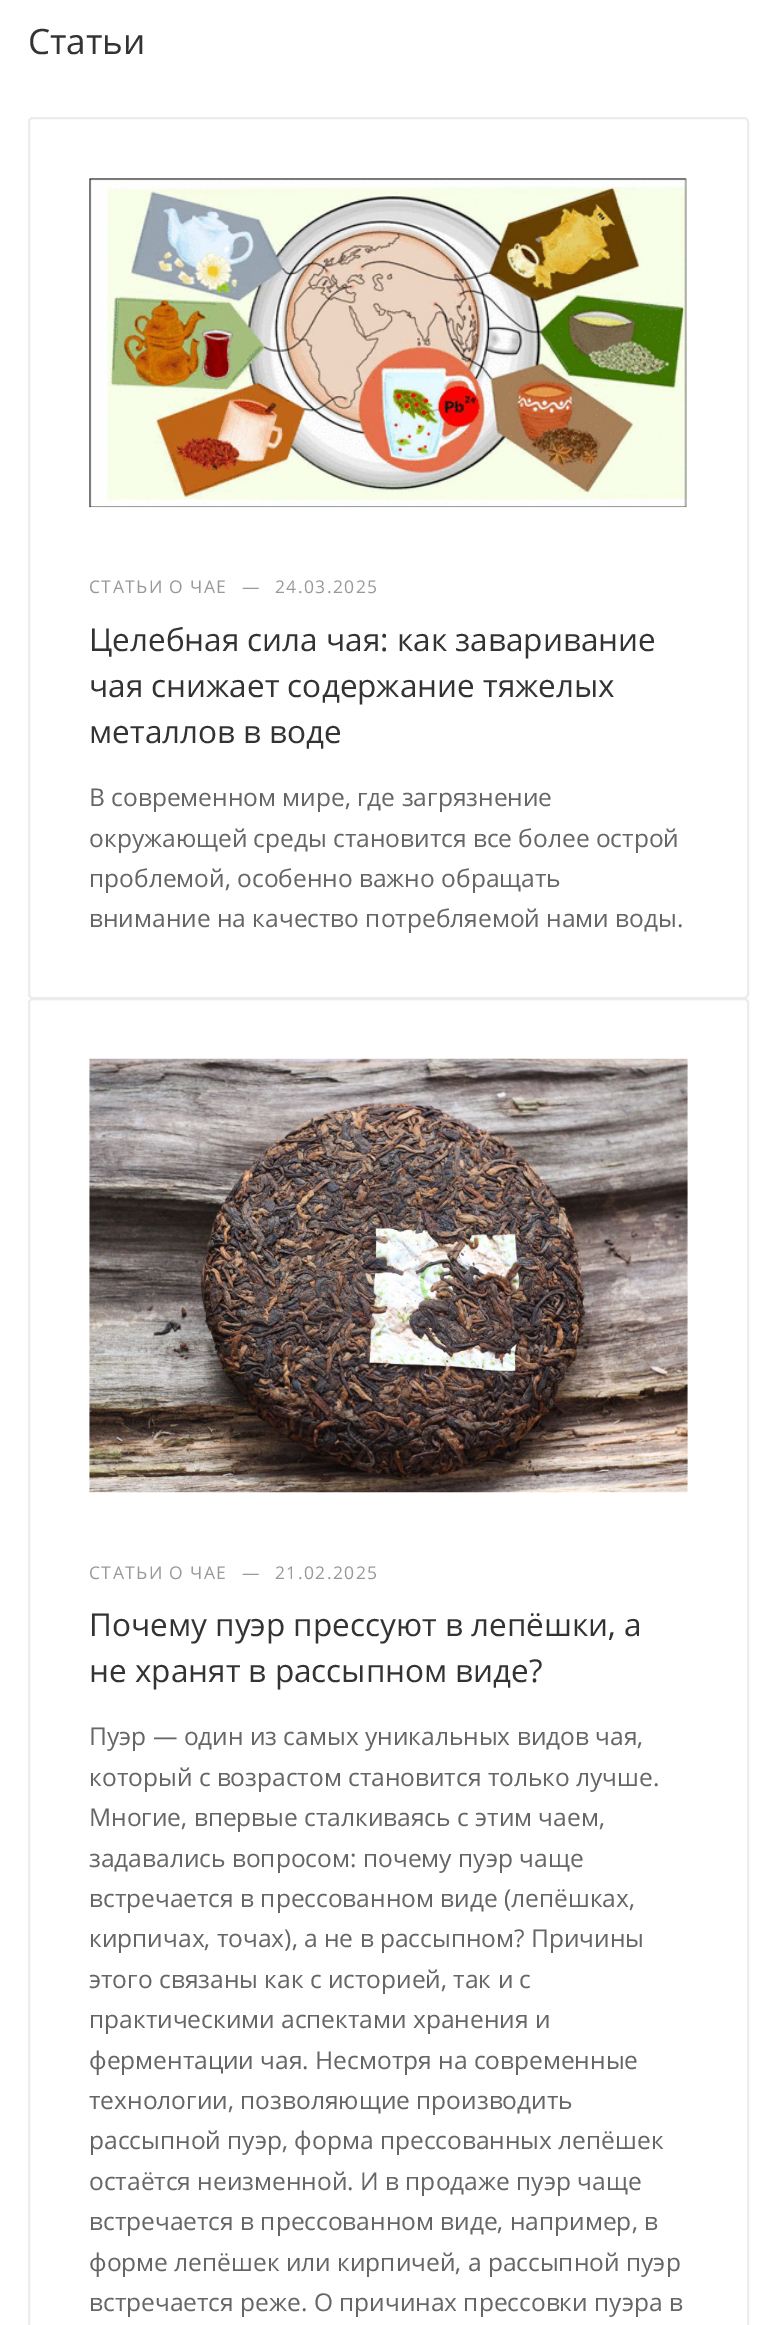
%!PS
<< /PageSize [776 2325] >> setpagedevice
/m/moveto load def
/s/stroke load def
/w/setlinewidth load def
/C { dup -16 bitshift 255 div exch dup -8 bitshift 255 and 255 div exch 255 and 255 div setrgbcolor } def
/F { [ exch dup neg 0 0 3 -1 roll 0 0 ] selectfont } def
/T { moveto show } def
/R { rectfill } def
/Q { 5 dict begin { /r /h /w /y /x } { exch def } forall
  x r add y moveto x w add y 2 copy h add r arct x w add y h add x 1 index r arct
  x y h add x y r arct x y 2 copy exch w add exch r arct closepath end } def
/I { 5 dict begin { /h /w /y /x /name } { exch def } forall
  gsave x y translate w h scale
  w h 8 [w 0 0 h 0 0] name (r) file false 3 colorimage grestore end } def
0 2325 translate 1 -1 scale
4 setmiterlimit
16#FFFFFF C
0 0 776 2325 R
/OpenSans-Regular 35 F
16#333333 C
(Статьи) 28 54 T
16#ECECEC C
2 w
29 118 719 880 4 Q s
(1.rgb) 89 178 599 330 I
/OpenSans-Regular 17.5 F
16#999999 C
89 593 m 1.4 0 (СТАТЬИ О ЧАЕ) ashow
242 593 m 1.4 0 (—) ashow
275 593 m 1.4 0 (24.03.2025) ashow
/OpenSans-Regular 31.5 F
16#333333 C
(Целебная сила чая: как заваривание) 89 651 T
(чая снижает содержание тяжелых) 89 697 T
(металлов в воде) 89 743 T
/OpenSans-Regular 24.5 F
16#666666 C
(В современном мире, где загрязнение) 89 806 T
(окружающей среды становится все более острой) 89 847 T
(проблемой, особенно важно обращать) 89 887 T
(внимание на качество потребляемой нами воды.) 89 927 T
16#ECECEC C
29 999 719 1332 4 Q s
(2.rgb) 89 1058 599 435 I
/OpenSans-Regular 17.5 F
16#999999 C
89 1579 m 1.4 0 (СТАТЬИ О ЧАЕ) ashow
242 1579 m 1.4 0 (—) ashow
275 1579 m 1.4 0 (21.02.2025) ashow
/OpenSans-Regular 31.5 F
16#333333 C
(Почему пуэр прессуют в лепёшки, а) 89 1636 T
(не хранят в рассыпном виде?) 89 1682 T
/OpenSans-Regular 24.5 F
16#666666 C
(Пуэр — один из самых уникальных видов чая,) 89 1745 T
(который с возрастом становится только лучше.) 89 1786 T
(Многие, впервые сталкиваясь с этим чаем,) 89 1826 T
(задавались вопросом: почему пуэр чаще) 89 1867 T
(встречается в прессованном виде \(лепёшках,) 89 1907 T
(кирпичах, точах\), а не в рассыпном? Причины) 89 1947 T
(этого связаны как с историей, так и с) 89 1988 T
(практическими аспектами хранения и) 89 2028 T
(ферментации чая. Несмотря на современные) 89 2069 T
(технологии, позволяющие производить) 89 2109 T
(рассыпной пуэр, форма прессованных лепёшек) 89 2149 T
(остаётся неизменной. И в продаже пуэр чаще) 89 2190 T
(встречается в прессованном виде, например, в) 89 2230 T
(форме лепёшек или кирпичей, а рассыпной пуэр) 89 2271 T
(встречается реже. О причинах прессовки пуэра в) 89 2311 T
showpage
